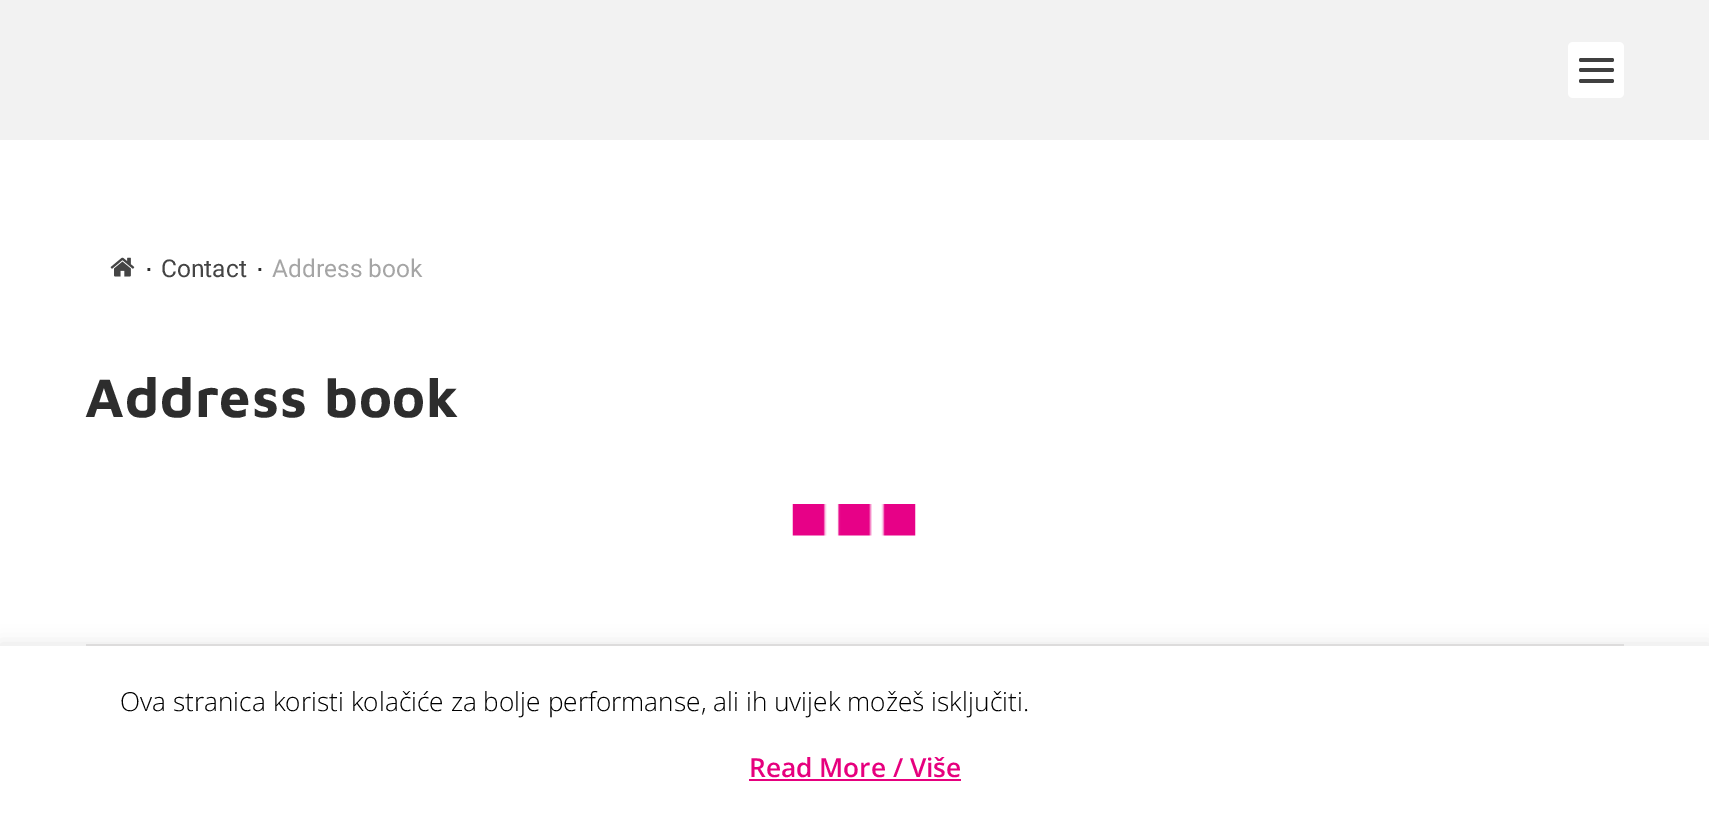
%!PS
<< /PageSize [1709 818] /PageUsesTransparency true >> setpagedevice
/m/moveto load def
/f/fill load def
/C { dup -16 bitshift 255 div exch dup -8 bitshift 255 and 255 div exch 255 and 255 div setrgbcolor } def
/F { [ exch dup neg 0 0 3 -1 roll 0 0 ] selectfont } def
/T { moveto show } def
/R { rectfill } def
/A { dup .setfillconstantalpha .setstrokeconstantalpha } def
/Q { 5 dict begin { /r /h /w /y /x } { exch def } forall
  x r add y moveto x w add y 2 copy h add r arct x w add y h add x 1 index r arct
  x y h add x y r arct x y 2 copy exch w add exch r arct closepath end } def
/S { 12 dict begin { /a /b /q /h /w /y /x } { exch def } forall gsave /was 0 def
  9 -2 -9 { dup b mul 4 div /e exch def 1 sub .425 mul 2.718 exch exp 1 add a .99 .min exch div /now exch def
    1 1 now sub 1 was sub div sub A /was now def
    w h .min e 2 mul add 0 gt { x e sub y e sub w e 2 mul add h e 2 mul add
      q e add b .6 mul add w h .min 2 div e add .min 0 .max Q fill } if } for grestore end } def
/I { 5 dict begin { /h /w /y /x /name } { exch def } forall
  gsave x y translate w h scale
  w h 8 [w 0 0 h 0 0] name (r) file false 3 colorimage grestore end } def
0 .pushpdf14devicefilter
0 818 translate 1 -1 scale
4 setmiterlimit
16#FFFFFF C
0 0 1709 818 R
16#F2F2F2 C
0 0 1709 140 R
16#FFFFFF C
1568 42 56 56 5 Q f
16#404040 C
1579 58 35 4 2 Q f
1579 68 35 4 2 Q f
1579 79 35 4 2 Q f
(1.rgb) 110 257 25 20 I
/LiberationSans-Regular 28 F
16#2D2D2D C
(∙) 145 277 T
/Roboto-Regular 24.5 F
16#444444 C
(Contact) 161 277 T
/LiberationSans-Regular 28 F
16#2D2D2D C
(∙) 256 277 T
/Roboto-Regular 24.5 F
16#A5A5A5 C
(Address book) 272 277 T
/MavenPro-Bold 56 F
16#2D2D2D C
85 417 m .9 0 (Address book) ashow
(2.rgb) 792 504 124 32 I
16#E5E5E5 C
86 644 1538 2 R
16#ACABAB C
0 644 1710 173 0 9 .3 S
16#FFFFFF C
0 646 1709 172 R
/OpenSans-Light 26.25 F
16#000000 C
(Ova stranica koristi kolačiće za bolje performanse, ali ih uvijek možeš isključiti.) 120 711 T
/OpenSans-SemiBold 26.25 F
16#E6007E C
(Read More / Više) 749 777 T
749 779 212 2 R
.poppdf14devicefilter showpage
